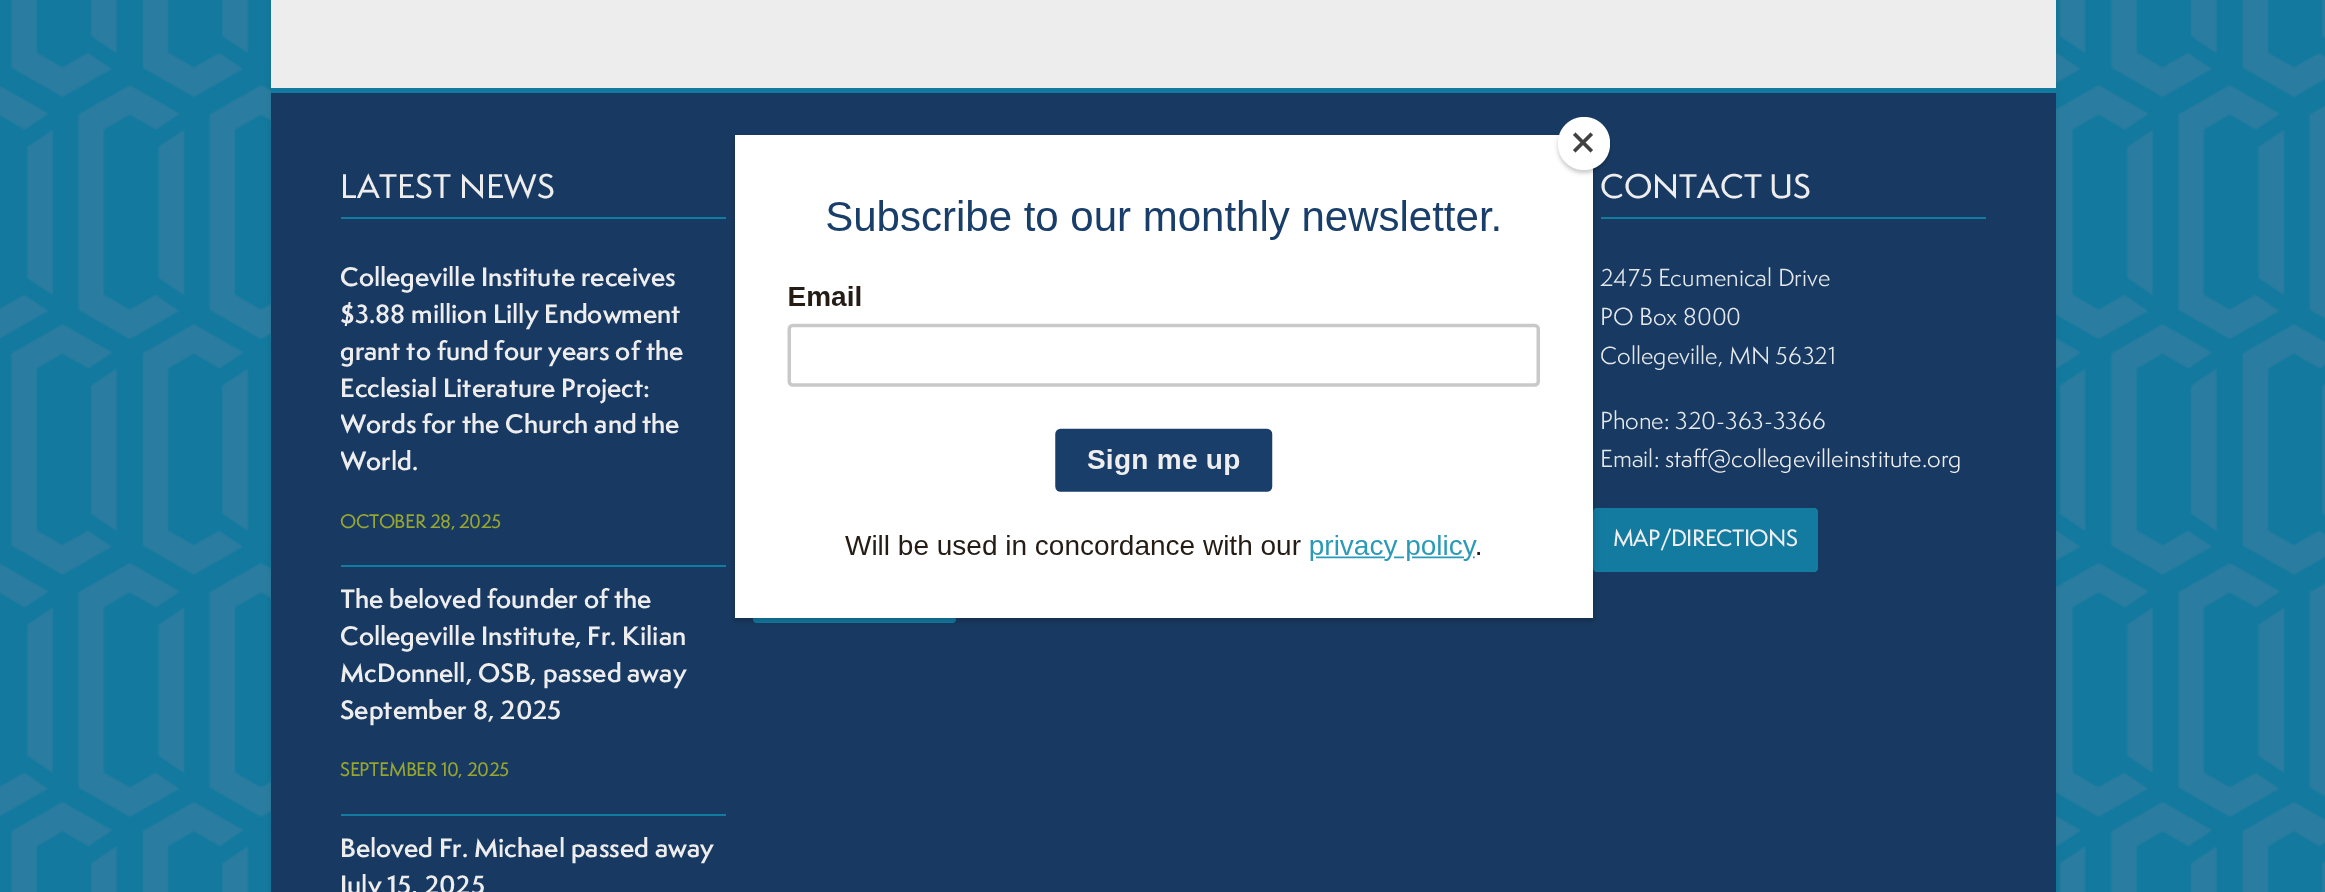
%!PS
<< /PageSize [2325 892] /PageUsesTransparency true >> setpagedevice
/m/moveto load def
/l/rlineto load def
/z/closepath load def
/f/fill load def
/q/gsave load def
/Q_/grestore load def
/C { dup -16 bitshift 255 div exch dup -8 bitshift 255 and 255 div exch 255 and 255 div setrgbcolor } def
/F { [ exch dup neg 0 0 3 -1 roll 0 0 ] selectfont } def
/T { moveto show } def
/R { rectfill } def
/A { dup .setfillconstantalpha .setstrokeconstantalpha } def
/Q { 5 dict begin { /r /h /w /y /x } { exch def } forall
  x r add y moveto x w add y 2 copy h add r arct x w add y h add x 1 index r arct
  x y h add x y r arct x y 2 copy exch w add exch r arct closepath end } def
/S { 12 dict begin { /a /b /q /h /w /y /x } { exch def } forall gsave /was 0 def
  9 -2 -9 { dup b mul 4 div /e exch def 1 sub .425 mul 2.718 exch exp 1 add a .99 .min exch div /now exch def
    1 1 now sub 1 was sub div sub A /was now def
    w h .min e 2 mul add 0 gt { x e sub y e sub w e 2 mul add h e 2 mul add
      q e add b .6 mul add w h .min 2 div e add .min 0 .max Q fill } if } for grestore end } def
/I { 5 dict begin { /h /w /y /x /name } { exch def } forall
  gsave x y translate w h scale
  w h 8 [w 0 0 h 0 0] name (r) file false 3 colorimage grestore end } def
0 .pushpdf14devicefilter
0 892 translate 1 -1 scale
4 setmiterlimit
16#FFFFFF C
0 0 2325 892 R
(1.rgb) 0 0 2325 892 I
16#000000 C
271 -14 1785 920 0 4.5 .1 S
16#183962 C
271 93 1785 799 R
16#137AA0 C
341 217 385 2 R
341 565 385 2 R
1601 217 385 2 R
1593 508 225 64 4 Q f
753 558 203 65 4 Q f
16#000000 C
735 138 858 483 0 3.5 .2 S
(2.rgb) 735 135 858 483 I
1558 121 52 52 26 2 .2 S
16#FFFFFF C
1558 117 52 53 26 Q f
16#414141 C
1590.5 132.5 m 2.5 2.5 l -17.5 17.5 l -2.5 -2.5 l z f
1573 135 m 2.5 -2.5 l 17.5 17.5 l -2.5 2.5 l z f
16#EDEDED C
271 0 1785 88 R
16#12799F C
271 88 1785 5 R
/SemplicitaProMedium-Regular 31.5 F
16#EDEDED C
(LATEST NEWS) 340 198 T
/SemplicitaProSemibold-Regular 24.5 F
(Collegeville Institute receives) 340 286 T
($3.88 million Lilly Endowment) 340 323 T
(grant to fund four years of the) 340 360 T
(Ecclesial Literature Project:) 340 397 T
q
341 263 385 302 rectclip
(Words for the Church and the) 340 433 T
(World.) 340 470 T
Q_
/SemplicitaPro-Bold 17.5 F
16#97A62F C
(OCTOBER 28, 2025) 340 528 T
16#137AA0 C
341 814 385 2 R
q
341 585 385 229 rectclip
/SemplicitaProSemibold-Regular 24.5 F
16#EDEDED C
(The beloved founder of the) 340 608 T
Q_
/SemplicitaProSemibold-Regular 24.5 F
16#EDEDED C
(Collegeville Institute, Fr. Kilian) 340 645 T
(McDonnell, OSB, passed away) 340 682 T
(September 8, 2025) 340 719 T
/SemplicitaPro-Bold 17.5 F
16#97A62F C
(SEPTEMBER 10, 2025) 340 776 T
/SemplicitaProSemibold-Regular 24.5 F
16#EDEDED C
(Beloved Fr. Michael passed away) 340 857 T
(July 15, 2025) 340 894 T
/SemplicitaProMedium-Regular 31.5 F
(CONTACT US) 1600 198 T
/SemplicitaPro-Regular 22.75 F
16#E2E8E9 C
(2475 Ecumenical Drive) 1600 286 T
(PO Box 8000) 1600 325 T
(Collegeville, MN 56321) 1600 364 T
(Phone: 320-363-3366) 1600 429 T
(Email:) 1600 467 T
16#EDEDED C
(staff@collegevilleinstitute.org) 1665 467 T
/SemplicitaPro-Bold 21 F
(MAP/DIRECTIONS) 1613 546 T
.poppdf14devicefilter showpage
